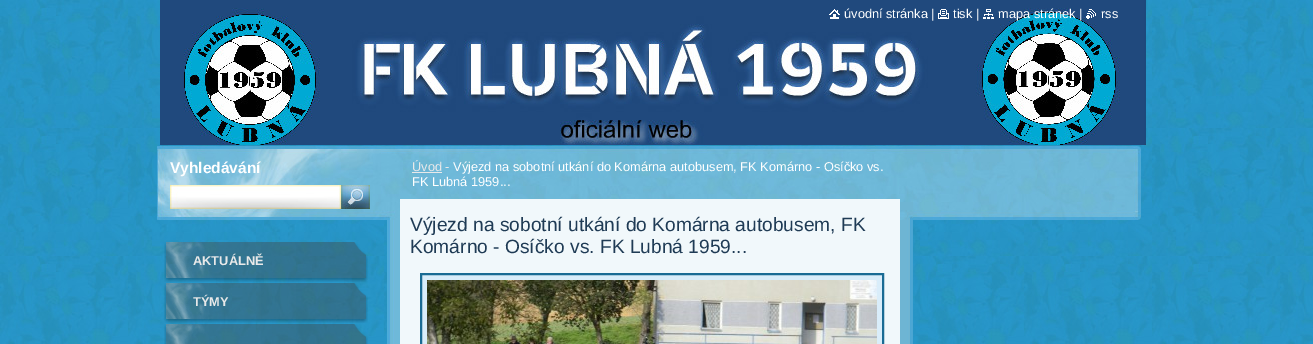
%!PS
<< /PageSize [1313 344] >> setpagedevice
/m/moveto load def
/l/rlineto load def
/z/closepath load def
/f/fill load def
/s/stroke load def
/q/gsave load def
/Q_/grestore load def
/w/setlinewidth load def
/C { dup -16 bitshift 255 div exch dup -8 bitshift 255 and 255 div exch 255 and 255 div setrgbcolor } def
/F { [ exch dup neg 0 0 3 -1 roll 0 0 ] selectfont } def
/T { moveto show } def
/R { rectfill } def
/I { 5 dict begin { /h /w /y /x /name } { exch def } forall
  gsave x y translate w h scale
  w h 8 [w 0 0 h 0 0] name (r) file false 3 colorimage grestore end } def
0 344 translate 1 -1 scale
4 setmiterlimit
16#FFFFFF C
0 0 1313 344 R
(1.rgb) 0 0 1313 344 I
(2.rgb) 160 0 986 145 I
(3.rgb) 829 9 11 10 I
/LiberationSans-Regular 12.8 F
(úvodní stránka |) 844 18 T
(4.rgb) 938 9 11 10 I
(tisk |) 953 18 T
(5.rgb) 983 9 11 10 I
(mapa stránek |) 998 18 T
(6.rgb) 1086 9 10 10 I
(rss) 1101 18 T
(7.rgb) 157 146 984 74 I
/LiberationSans-Bold 15.5 F
(Vyhledávání) 170 173 T
(8.rgb) 170 185 171 24 I
(9.rgb) 341 185 29 24 I
(10.rgb) 387 220 526 124 I
(11.rgb) 387 146 526 74 I
/LiberationSans-Regular 12.8 F
16#E9E9E9 C
(Úvod -) 412 171 T
412 172 30 1 R
16#FFFFFF C
(Výjezd na sobotní utkání do Komárna autobusem, FK Komárno - Osíčko vs.) 453 171 T
(FK Lubná 1959...) 412 186 T
16#F1F8FB C
400 199 500 145 R
/LiberationSans-Regular 19.2 F
16#1F3B55 C
(Výjezd na sobotní utkání do Komárna autobusem, FK) 410 231 T
(Komárno - Osíčko vs. FK Lubná 1959...) 410 253 T
16#D9EDFA C
421 274 m 462 0 l 0 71 l -462 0 l z q f Q_
16#1A6B94 C
2 w
s
(12.rgb) 427 280 450 64 I
(13.rgb) 164 242 204 40 I
/LiberationSans-Bold 12.8 F
16#E9E9E9 C
(AKTUÁLNĚ) 193 265 T
(14.rgb) 164 283 204 40 I
(TÝMY) 193 306 T
(15.rgb) 164 324 204 20 I
showpage
